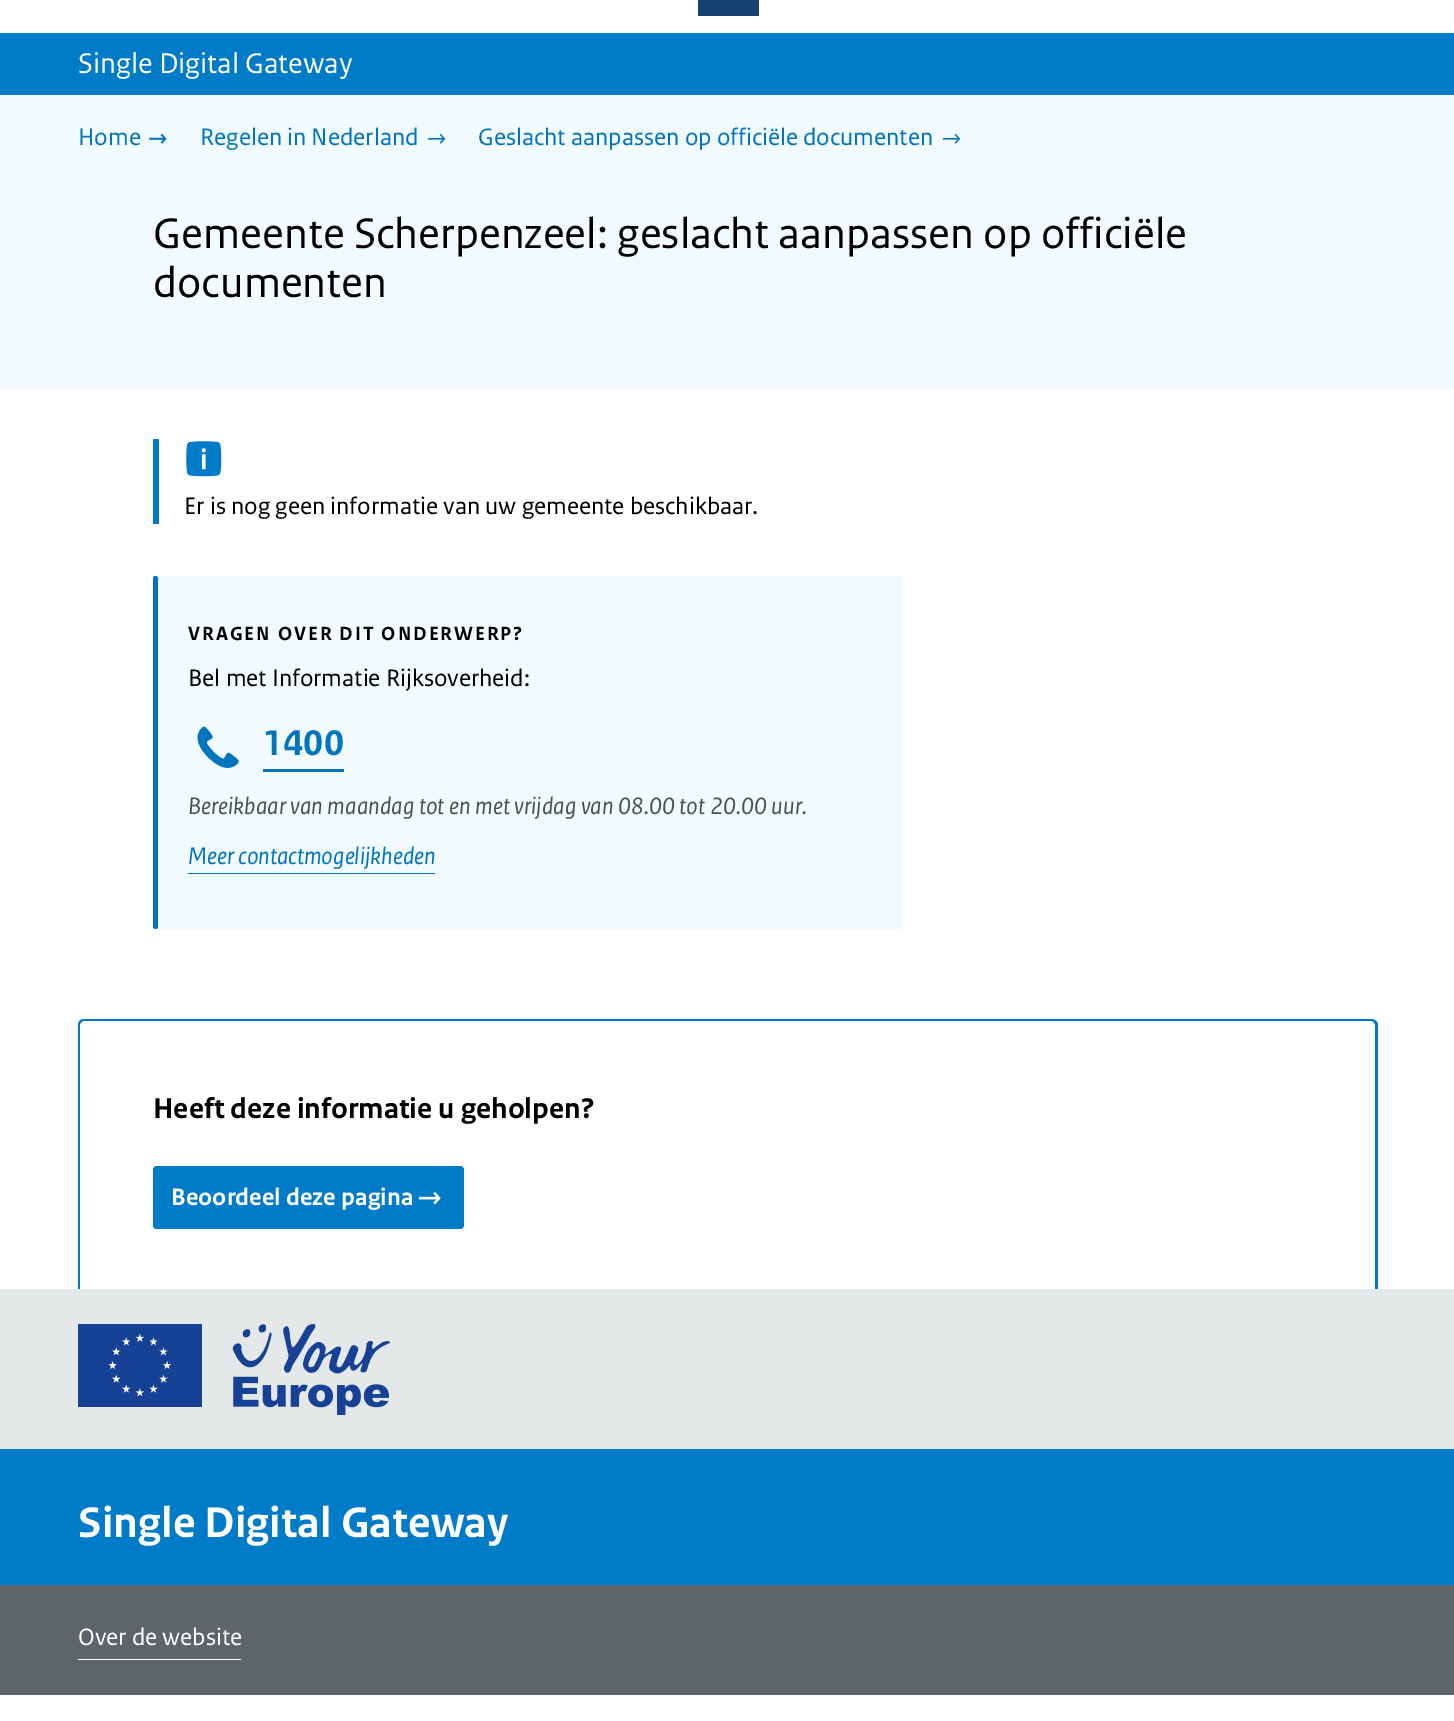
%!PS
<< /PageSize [1454 1721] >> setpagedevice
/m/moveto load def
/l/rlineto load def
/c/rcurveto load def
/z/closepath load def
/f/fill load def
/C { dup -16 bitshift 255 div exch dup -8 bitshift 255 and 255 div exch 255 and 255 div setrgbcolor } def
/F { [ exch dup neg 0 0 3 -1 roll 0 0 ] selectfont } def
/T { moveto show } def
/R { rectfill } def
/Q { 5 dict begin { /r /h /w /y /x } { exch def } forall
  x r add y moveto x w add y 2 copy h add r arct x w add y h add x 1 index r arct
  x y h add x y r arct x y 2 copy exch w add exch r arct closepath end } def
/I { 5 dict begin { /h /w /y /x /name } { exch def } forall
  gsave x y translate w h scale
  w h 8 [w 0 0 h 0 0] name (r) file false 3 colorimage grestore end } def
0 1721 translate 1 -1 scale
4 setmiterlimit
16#FFFFFF C
0 0 1454 1721 R
16#154273 C
698 0 61 16 R
16#007BC7 C
0 33 1454 62 R
/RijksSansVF-Regular 30 F
16#FFFFFF C
(Single Digital Gateway) 78 73 T
16#F1FAFF C
0 95 1454 294 R
/RijksSansVF-Regular 25 F
16#0074BD C
(Home) 78 145 T
(1.rgb) 149 133 18 11 I
(Regelen in Nederland) 200 145 T
(2.rgb) 427 133 19 11 I
(Geslacht aanpassen op officiële documenten) 478 145 T
(2.rgb) 942 133 19 11 I
/RijksSansVF-Regular 45 F
16#000000 C
(Gemeente Scherpenzeel: geslacht aanpassen op officiële) 153 248 T
(documenten) 153 297 T
16#007BC7 C
153 439 6 85 R
(3.rgb) 186 441 36 36 I
/RijksSansVF-Regular 25 F
16#000000 C
(Er is nog geen informatie van uw gemeente beschikbaar.) 184 514 T
16#F1FAFF C
153 576 750 353 R
16#0074BD C
153 576 5 353 2.5 Q f
/RijksSansVF-Bold 20 F
16#000000 C
188 640 m 2 0 (VRAGEN OVER DIT ONDERWERP?) ashow
/RijksSansVF-Regular 25 F
(Bel met Informatie Rijksoverheid:) 188 686 T
(4.rgb) 197 726 42 42 I
/RijksSansVF-Bold 37.5 F
16#0074BD C
(1400) 263 755 T
263 769 81 3 R
/RijksSansVF-Italic 25 F
16#4B5053 C
(Bereikbaar van maandag tot en met vrijdag van 08.00 tot 20.00 uur.) 188 814 T
16#0074BD C
(Meer contactmogelijkheden) 188 864 T
188 873 247 1 R
16#007BC7 C
84 1019 m 1287 0 l 4 0 7 3 7 6 c 0 264 l -1300 0 l 0 -264 l 0 -3 2 -6 6 -6 c z 84 1021 m 1287 0 l 2 0 4 2 4 4 c 0 264 l -1295 0 l 0 -264 l 0 -2 2 -4 4 -4 c z eofill
/RijksSansVF-Bold 30 F
16#000000 C
(Heeft deze informatie u geholpen?) 153 1118 T
16#007BC7 C
153 1166 311 63 4 Q f
/RijksSansVF-Bold 25 F
16#FFFFFF C
(Beoordeel deze pagina) 171 1205 T
(5.rgb) 418 1192 23 13 I
16#E4E8E9 C
0 1289 1454 160 R
(6.rgb) 78 1324 312 91 I
16#007BC7 C
0 1449 1454 136 R
/RijksSansVF-Bold 45 F
16#FFFFFF C
(Single Digital Gateway) 78 1537 T
16#5E6568 C
0 1585 1454 110 R
16#FFFFFF C
78 1659 163 1 R
/RijksSansVF-Regular 25 F
(Over de website) 78 1645 T
showpage
